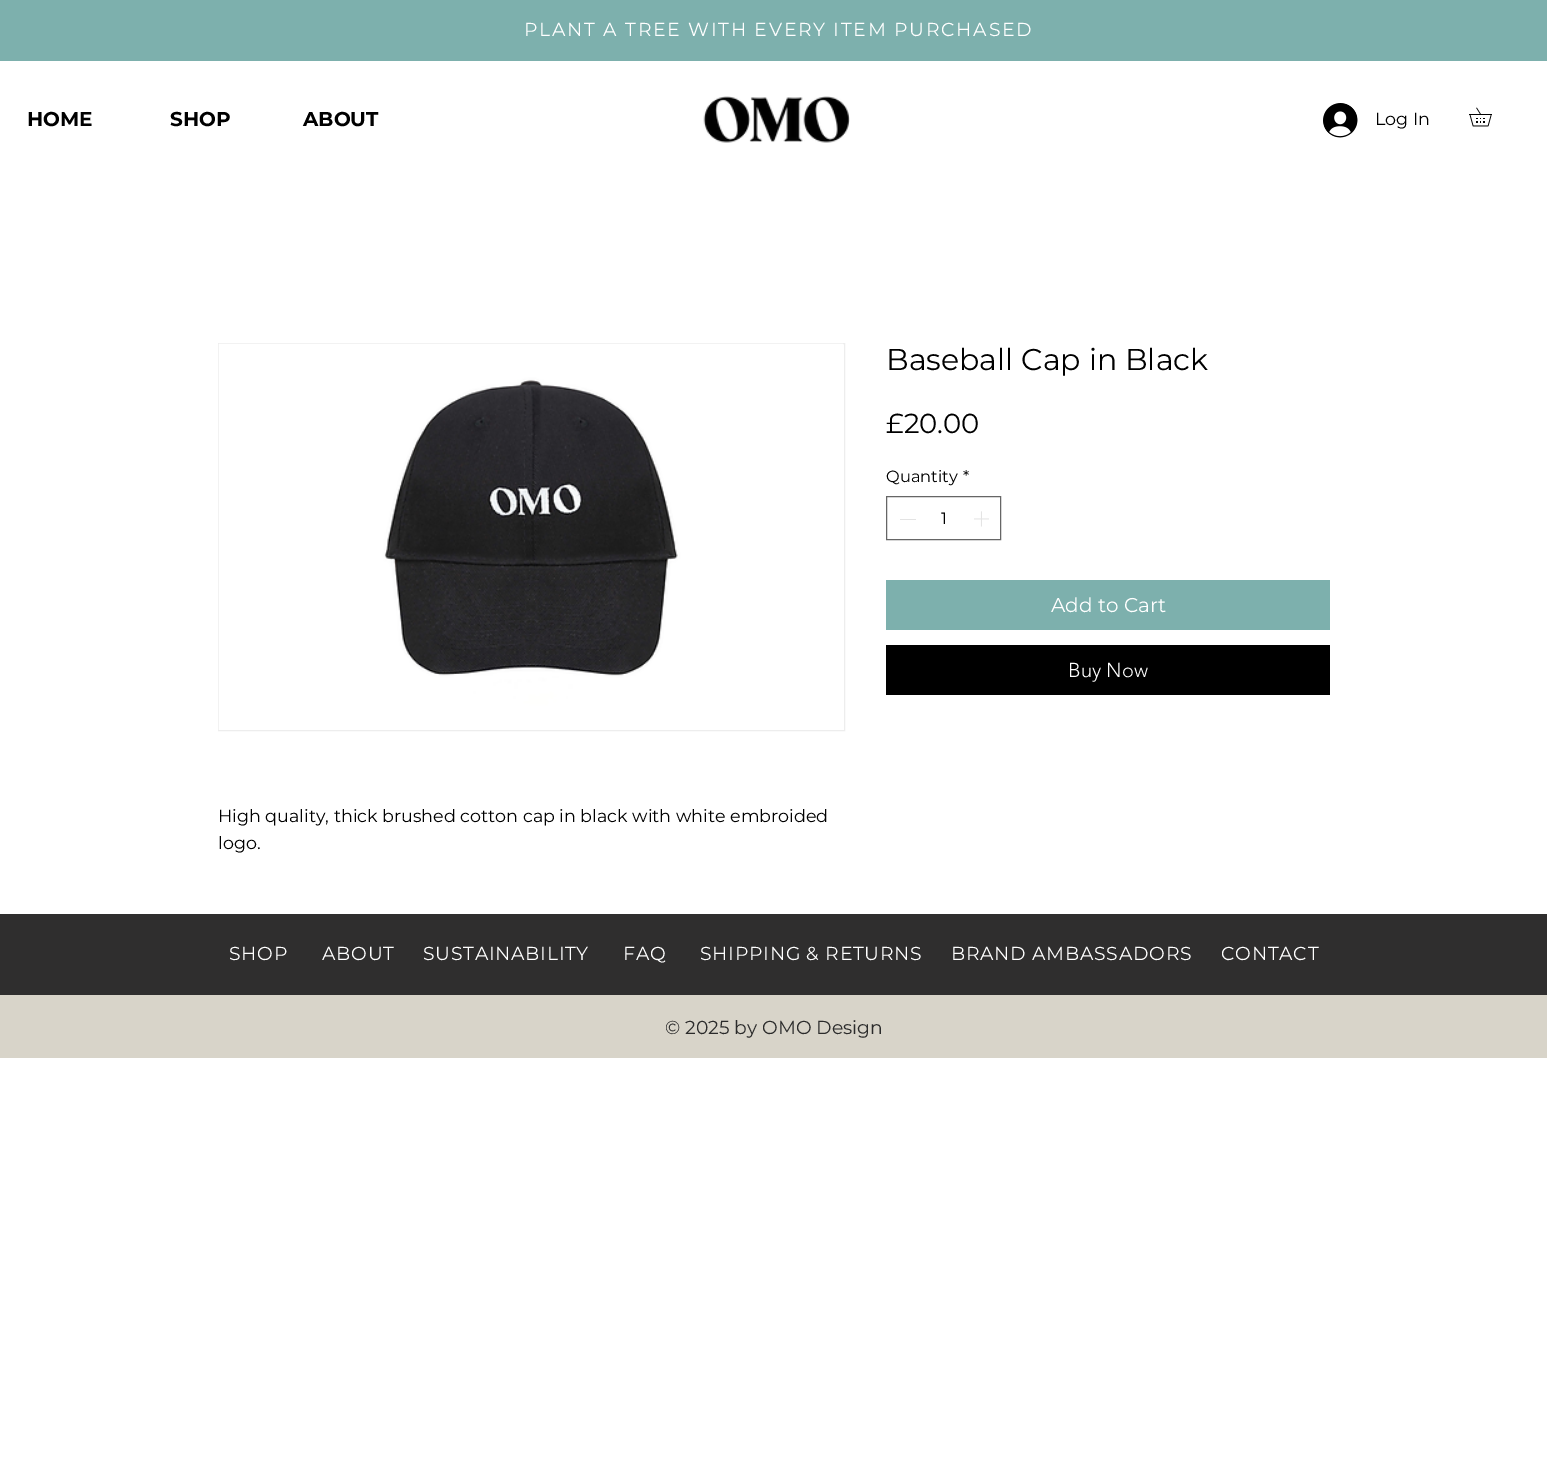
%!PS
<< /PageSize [1547 1468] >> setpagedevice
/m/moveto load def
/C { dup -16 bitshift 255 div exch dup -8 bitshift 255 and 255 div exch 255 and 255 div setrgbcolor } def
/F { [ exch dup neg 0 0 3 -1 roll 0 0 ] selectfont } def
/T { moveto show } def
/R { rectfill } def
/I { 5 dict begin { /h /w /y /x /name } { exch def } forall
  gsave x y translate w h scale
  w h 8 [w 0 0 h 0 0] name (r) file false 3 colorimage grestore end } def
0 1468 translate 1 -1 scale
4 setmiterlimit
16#FFFFFF C
0 0 1547 1468 R
16#7DB0AD C
0 0 1547 61 R
/Montserrat-Regular 18.75 F
16#FFFFFF C
524 36 m 1.75 0 (PLANT A TREE WITH EVERY ITEM PURCHASED) ashow
/Montserrat-Bold 20 F
16#000000 C
(HOME) 27 126 T
(SHOP) 170 126 T
(ABOUT) 303 126 T
(1.rgb) 703 96 147 47 I
(2.rgb) 1323 103 35 35 I
/Montserrat-Regular 17.5 F
(Log In) 1375 125 T
(3.rgb) 1469 107 23 20 I
/Montserrat-Regular 30 F
(Baseball Cap in Black) 886 370 T
/Montserrat-Regular 27.5 F
(£20.00) 886 433 T
/Montserrat-Regular 16.25 F
(Quantity) 886 482 T
(*) 963 482 T
16#666666 C
886.5 496.5 114 43 rectstroke
16#E3E3E3 C
900 519 16 1 R
16#000000 C
(1) 941 524 T
(4.rgb) 974 511 15 16 I
16#7DB0AD C
886 580 444 50 R
/Montserrat-Regular 20 F
16#FFFFFF C
(Add to Cart) 1051 612 T
16#000000 C
886 645 444 50 R
/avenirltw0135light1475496-Light 20 F
16#FFFFFF C
(Buy Now) 1068 677 T
16#EDEDED C
218.5 343.5 626 387 rectstroke
(5.rgb) 218 343 625 387 I
/Montserrat-Regular 17.5 F
16#000000 C
(High quality, thick brushed cotton cap in black with white embroided) 218 822 T
(logo.) 218 849 T
16#2F2E2E C
0 914 1547 81 R
/Montserrat-Regular 18.75 F
16#FFFFFF C
229 960 m .75 0 (SHOP) ashow
322 960 m .75 0 (ABOUT) ashow
423 960 m .75 0 (SUSTAINABILITY) ashow
623 960 m .75 0 (FAQ) ashow
700 960 m .75 0 (SHIPPING & RETURNS) ashow
951 960 m .75 0 (BRAND AMBASSADORS) ashow
1221 960 m .75 0 (CONTACT) ashow
16#D8D4C9 C
0 995 1547 63 R
16#2B2B2B C
(© 2025 by OMO Design) 665 1034 T
showpage
